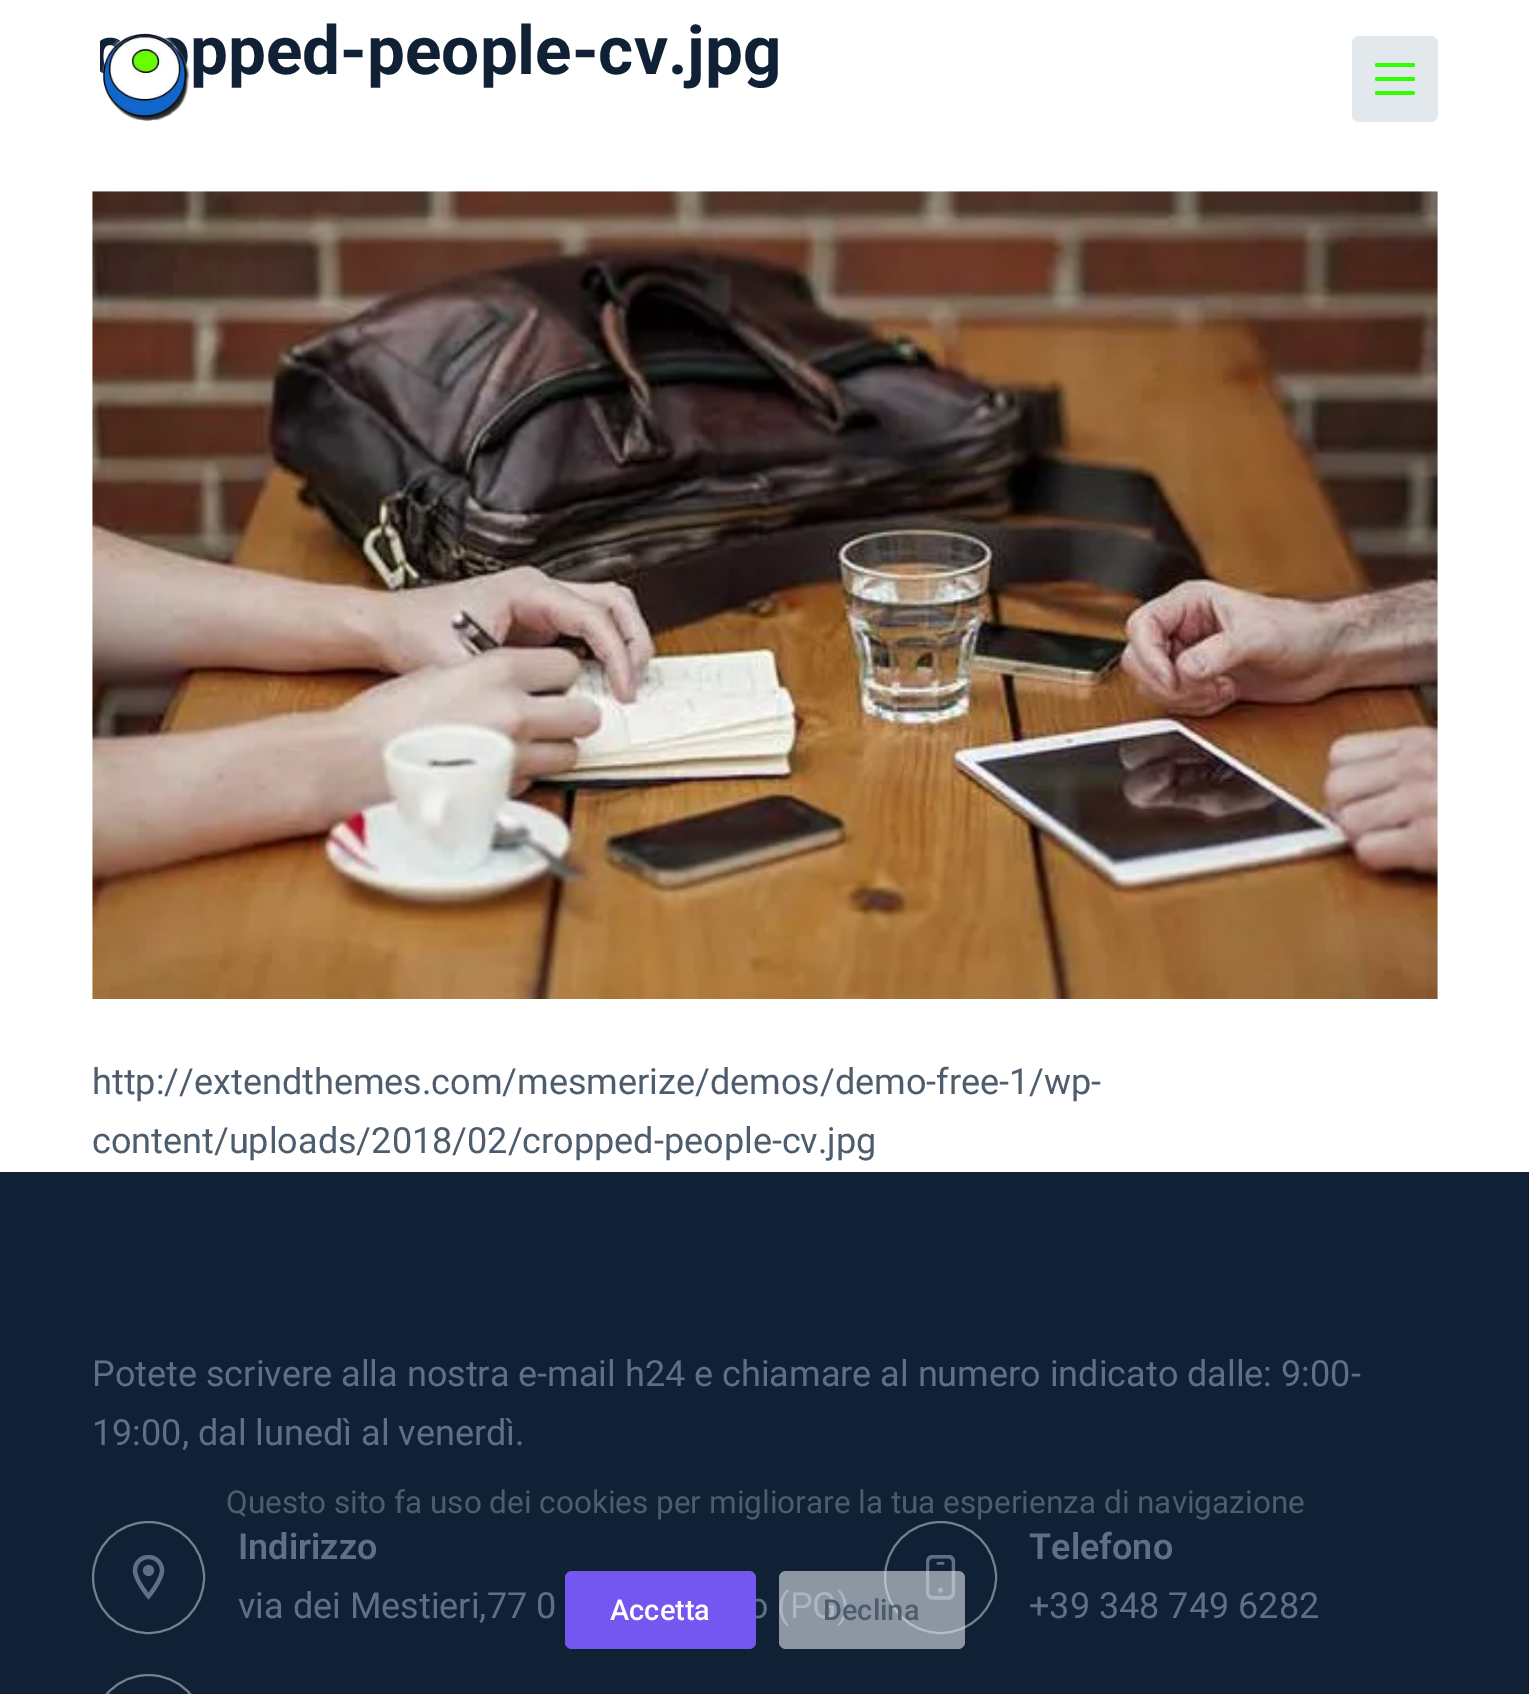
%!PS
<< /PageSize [1529 1694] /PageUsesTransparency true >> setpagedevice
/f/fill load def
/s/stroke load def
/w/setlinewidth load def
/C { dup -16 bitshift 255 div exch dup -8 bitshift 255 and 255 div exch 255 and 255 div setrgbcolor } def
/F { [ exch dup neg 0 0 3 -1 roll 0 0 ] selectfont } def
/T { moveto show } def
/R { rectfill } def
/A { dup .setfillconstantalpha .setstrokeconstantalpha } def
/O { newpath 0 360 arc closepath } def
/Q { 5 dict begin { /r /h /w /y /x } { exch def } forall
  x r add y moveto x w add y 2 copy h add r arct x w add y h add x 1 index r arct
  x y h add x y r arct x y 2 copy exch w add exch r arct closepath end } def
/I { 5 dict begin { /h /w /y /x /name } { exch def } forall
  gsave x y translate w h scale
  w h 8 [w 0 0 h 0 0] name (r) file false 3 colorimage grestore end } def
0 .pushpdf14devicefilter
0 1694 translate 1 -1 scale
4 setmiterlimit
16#FFFFFF C
0 0 1529 1694 R
/Roboto-Bold 67.5 F
16#102136 C
(pped-people-cv.jpg) 190 74 T
(1.rgb) 92 191 1346 808 I
/Roboto-Regular 36 F
16#4D5D6D C
(http://extendthemes.com/mesmerize/demos/demo-free-1/wp-) 92 1094 T
(content/uploads/2018/02/cropped-people-cv.jpg) 92 1153 T
(2.rgb) 100 33 90 88 I
16#E3E8ED C
1352 36 86 86 7 Q f
16#2FFF00 C
1375 63 40 4 2 Q f
1375 77 40 4 2 Q f
1375 91 40 4 2 Q f
16#102136 C
0 1172 1529 522 R
16#5E7086 C
(Potete scrivere alla nostra e-mail h24 e chiamare al numero indicato dalle: 9:00-) 92 1386 T
(19:00, dal lunedì al venerdì.) 92 1445 T
16#75808D C
2 w
148.5 1577.5 55.5 O s
(3.rgb) 132 1555 33 45 I
/Roboto-SemiBold 36 F
16#5E7086 C
(Indirizzo) 238 1559 T
/Roboto-Regular 36 F
(via dei Mestieri,77 0) 238 1618 T
(o \(PG\)) 748 1618 T
16#75808D C
940.5 1577.5 55.5 O s
(4.rgb) 926 1555 30 45 I
/Roboto-SemiBold 36 F
16#5E7086 C
(Telefono) 1029 1559 T
/Roboto-Regular 36 F
(+39 348 749 6282) 1029 1618 T
16#75808D C
93 1675 111 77 55.5 Q s
/Roboto-Regular 31.5 F
16#4D5D6D C
(Questo sito fa uso dei cookies per migliorare la tua esperienza di navigazione) 226 1513 T
16#7456F1 C
565 1571 191 78 7 Q f
/Roboto-Medium 29 F
16#FFFFFF C
(Accetta) 610 1620 T
0.6 A
16#E0E5EB C
779 1571 186 78 7 Q f
1 A
16#4D5D6D C
(Declina) 823 1620 T
.poppdf14devicefilter showpage
